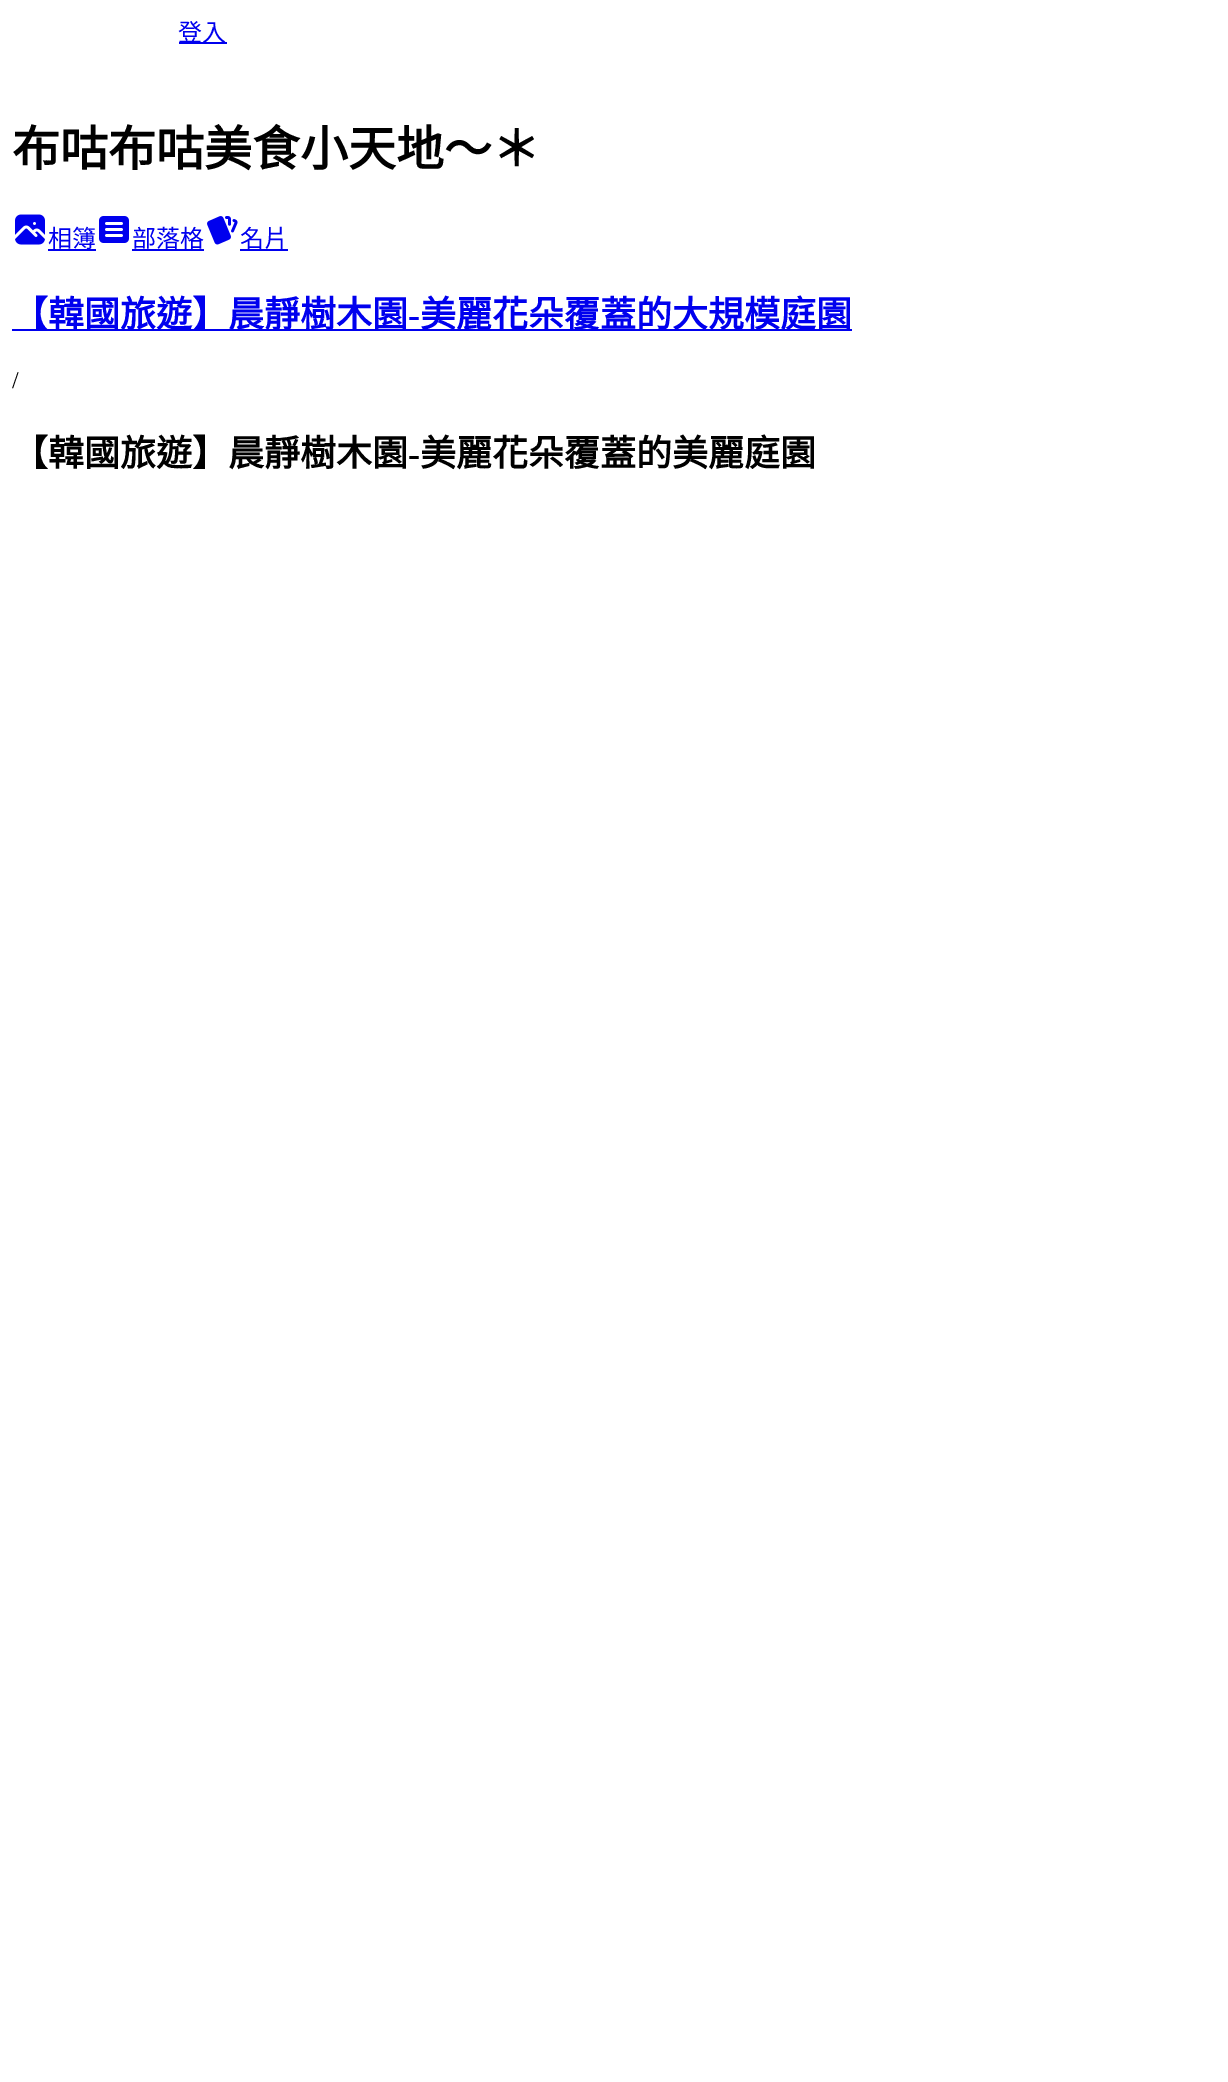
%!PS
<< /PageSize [1228 2082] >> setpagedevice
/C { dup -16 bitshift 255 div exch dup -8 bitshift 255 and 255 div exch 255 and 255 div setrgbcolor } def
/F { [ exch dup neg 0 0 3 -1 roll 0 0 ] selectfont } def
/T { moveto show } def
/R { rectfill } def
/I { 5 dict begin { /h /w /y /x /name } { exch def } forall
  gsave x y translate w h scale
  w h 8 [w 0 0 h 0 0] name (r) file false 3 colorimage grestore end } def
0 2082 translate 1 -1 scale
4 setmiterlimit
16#FFFFFF C
0 0 1228 2082 R
16#0000EE C
179 42 48 2 R
/NotoSansCJKTC-Regular 24 F
(登入) 178 41 T
/NotoSansCJKTC-Bold 48 F
16#000000 C
(布咕布咕美食小天地～＊) 12 166 T
(1.rgb) 15 214 30 31 I
/NotoSansCJKTC-Regular 24 F
16#0000EE C
(相簿) 48 247 T
48 249 48 2 R
(2.rgb) 99 216 30 27 I
(部落格) 132 247 T
132 249 72 2 R
(3.rgb) 207 216 31 29 I
(名片) 240 247 T
240 249 48 2 R
12 329 840 2 R
/NotoSansCJKTC-Bold 36 F
(【韓國旅遊】晨靜樹木園) 12 327 T
/LiberationSerif-Bold 36 F
(-) 408 327 T
/NotoSansCJKTC-Bold 36 F
(美麗花朵覆蓋的大規模庭園) 420 327 T
/LiberationSerif-Regular 24 F
16#000000 C
(/) 12 388 T
/NotoSansCJKTC-Bold 36 F
(【韓國旅遊】晨靜樹木園) 12 466 T
/LiberationSerif-Bold 36 F
(-) 408 466 T
/NotoSansCJKTC-Bold 36 F
(美麗花朵覆蓋的美麗庭園) 420 466 T
showpage
